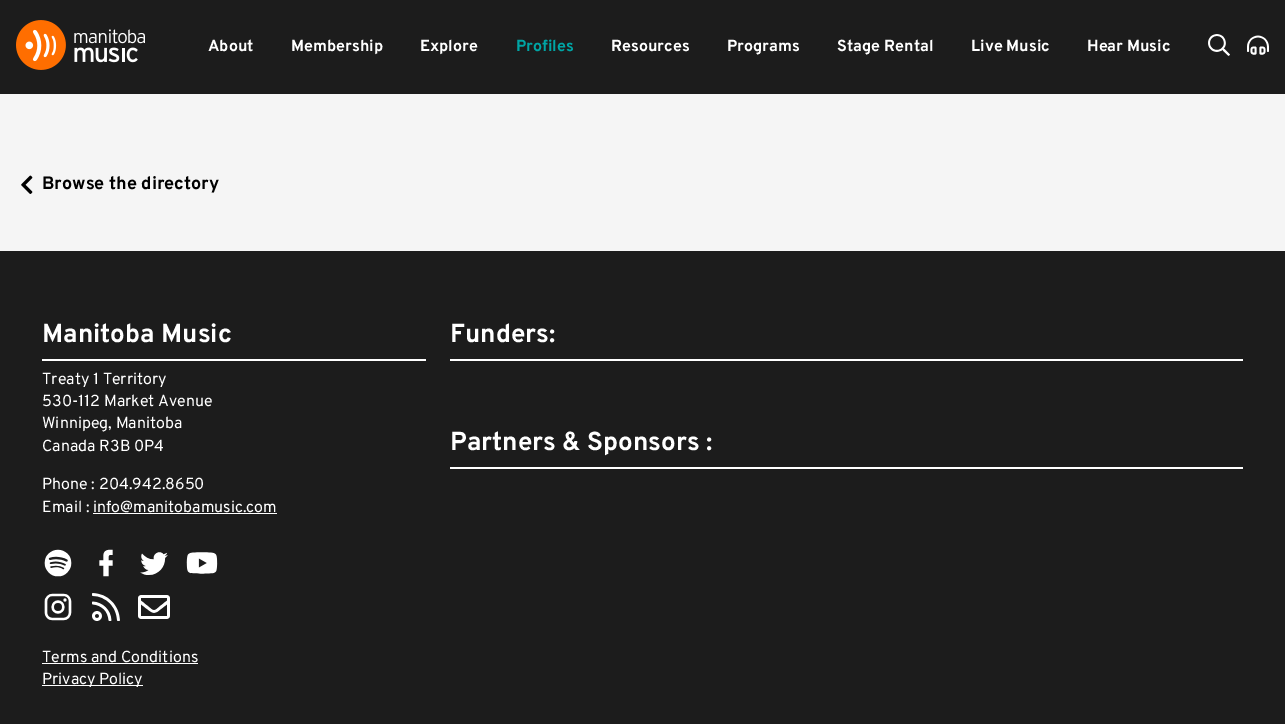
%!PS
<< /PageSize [1285 724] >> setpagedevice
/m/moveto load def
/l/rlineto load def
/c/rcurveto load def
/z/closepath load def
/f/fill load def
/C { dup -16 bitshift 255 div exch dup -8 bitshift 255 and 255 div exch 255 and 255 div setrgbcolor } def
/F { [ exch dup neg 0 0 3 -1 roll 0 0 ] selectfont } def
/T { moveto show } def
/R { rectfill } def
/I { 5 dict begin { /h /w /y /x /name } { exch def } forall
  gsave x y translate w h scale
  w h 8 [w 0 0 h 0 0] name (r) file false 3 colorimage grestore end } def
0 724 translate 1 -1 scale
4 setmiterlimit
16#FFFFFF C
0 0 1285 724 R
16#F5F5F5 C
-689 -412 m 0 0 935 -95 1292 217 c 356 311 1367 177 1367 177 c 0 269 l -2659 0 l z f
16#1C1C1C C
0 0 1285 94 R
(1.rgb) 16 20 129 50 I
/Overpass-Bold 16 F
16#FFFFFF C
(About) 208 51 T
(Membership) 291 51 T
(Explore) 420 51 T
16#00A5A5 C
(Profiles) 516 51 T
16#FFFFFF C
(Resources) 611 51 T
(Programs) 727 51 T
(Stage Rental) 837 51 T
(Live Music) 971 51 T
(Hear Music) 1087 51 T
(2.rgb) 1208 34 22 22 I
(3.rgb) 1247 35 22 20 I
(4.rgb) 21 175 12 19 I
/Overpass-Bold 18 F
16#000000 C
(Browse the directory) 42 189 T
16#1C1C1C C
0 251 1285 473 R
16#FFFFFF C
42 359 384 2 R
/Overpass-Bold 26 F
(Manitoba Music) 42 342 T
/Overpass-Regular 16 F
(Treaty 1 Territory) 42 384 T
(530-112 Market Avenue) 42 406 T
(Winnipeg, Manitoba) 42 428 T
(Canada R3B 0P4) 42 451 T
(Phone : 204.942.8650) 42 489 T
(Email : info@manitobamusic.com) 42 512 T
93 513 184 1 R
(5.rgb) 44 549 28 28 I
(6.rgb) 99 549 14 28 I
(7.rgb) 140 552 28 23 I
(8.rgb) 186 552 32 22 I
(9.rgb) 44 593 28 28 I
(10.rgb) 92 593 28 28 I
(11.rgb) 138 595 32 24 I
(Terms and Conditions) 42 662 T
42 663 156 1 R
42 685 101 1 R
(Privacy Policy) 42 684 T
450 359 793 2 R
/Overpass-Bold 26 F
(Funders:) 450 342 T
450 467 793 2 R
(Partners & Sponsors :) 450 450 T
showpage
